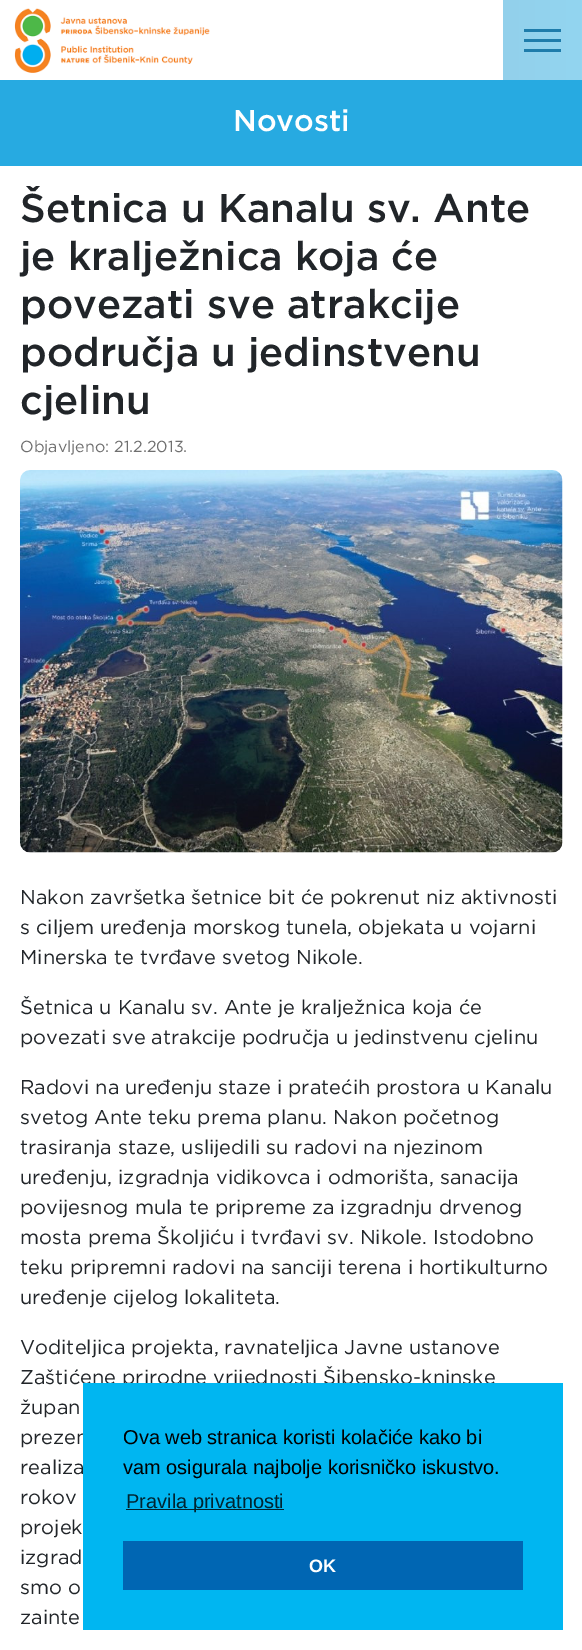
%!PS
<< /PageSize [582 1650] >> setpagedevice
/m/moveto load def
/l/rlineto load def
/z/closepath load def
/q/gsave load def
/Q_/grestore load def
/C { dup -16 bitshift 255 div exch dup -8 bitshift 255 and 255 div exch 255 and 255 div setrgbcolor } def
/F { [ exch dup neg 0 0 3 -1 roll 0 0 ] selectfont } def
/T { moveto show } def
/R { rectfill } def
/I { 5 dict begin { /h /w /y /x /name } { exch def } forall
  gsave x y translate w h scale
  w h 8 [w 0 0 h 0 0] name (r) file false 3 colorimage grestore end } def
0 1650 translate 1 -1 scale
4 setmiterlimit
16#FFFFFF C
0 0 582 1650 R
q 503 0 m 79 0 l 0 80 l -79 0 l z clip newpath
<< /ShadingType 2 /ColorSpace /DeviceRGB /Coords [0 40 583 40] /Extend [true true] /Function << /FunctionType 3 /Domain [0 1] /Functions [<< /FunctionType 2 /Domain [0 1] /C0 [.549 .69 .812] /C1 [.549 .69 .812] /N 1 >> << /FunctionType 2 /Domain [0 1] /C0 [.549 .69 .812] /C1 [.576 .835 .941] /N 1 >>] /Bounds [.01] /Encode [0 1 0 1] >> >> shfill Q_
(1.rgb) 14 8 196 65 I
16#1E7CAB C
524 29 37 3 R
524 39 37 3 R
524 49 37 3 R
16#27AAE1 C
0 80 582 86 R
/Gotham-Medium 30 F
16#FFFFFF C
(Novosti) 233 131 T
/Gotham-Medium 40 F
16#212529 C
(Šetnica u Kanalu sv. Ante) 20 222 T
(je kralježnica koja će) 20 270 T
(povezati sve atrakcije) 20 318 T
(područja u jedinstvenu) 20 366 T
(cjelinu) 20 414 T
/Gotham-Regular 16 F
16#6F6F6F C
(Objavljeno: 21.2.2013.) 20 452 T
(2.rgb) 20 470 543 383 I
/Gotham-Regular 20 F
16#212529 C
(Nakon završetka šetnice bit će pokrenut niz aktivnosti) 20 904 T
(s ciljem uređenja morskog tunela, objekata u vojarni) 20 934 T
(Minerska te tvrđave svetog Nikole.) 20 964 T
(Šetnica u Kanalu sv. Ante je kralježnica koja će) 20 1014 T
(povezati sve atrakcije područja u jedinstvenu cjelinu) 20 1044 T
(Radovi na uređenju staze i pratećih prostora u Kanalu) 20 1094 T
(svetog Ante teku prema planu. Nakon početnog) 20 1124 T
(trasiranja staze, uslijedili su radovi na njezinom) 20 1154 T
(uređenju, izgradnja vidikovca i odmorišta, sanacija) 20 1184 T
(povijesnog mula te pripreme za izgradnju drvenog) 20 1214 T
(mosta prema Školjiću i tvrđavi sv. Nikole. Istodobno) 20 1244 T
(teku pripremni radovi na sanciji terena i hortikulturno) 20 1274 T
(uređenje cijelog lokaliteta.) 20 1304 T
(Voditeljica projekta, ravnateljica Javne ustanove) 20 1354 T
(Zaštićene prirodne vrijednosti Šibensko-kninske) 20 1384 T
(župan) 20 1414 T
(prezen) 20 1444 T
(realiza) 20 1474 T
(rokov) 20 1504 T
(projek) 20 1534 T
(izgrad) 20 1564 T
(smo o) 20 1594 T
(zainte) 20 1624 T
16#00B6F1 C
83 1383 480 247 R
/LiberationSans-Regular 20 F
16#000000 C
(Ova web stranica koristi kolačiće kako bi) 123 1444 T
(vam osigurala najbolje korisničko iskustvo.) 123 1474 T
16#002430 C
126 1509 158 1 R
(Pravila privatnosti) 126 1508 T
16#0066B3 C
123 1541 400 49 R
/LiberationSans-Bold 18 F
16#FFFFFF C
(OK) 309 1572 T
showpage
